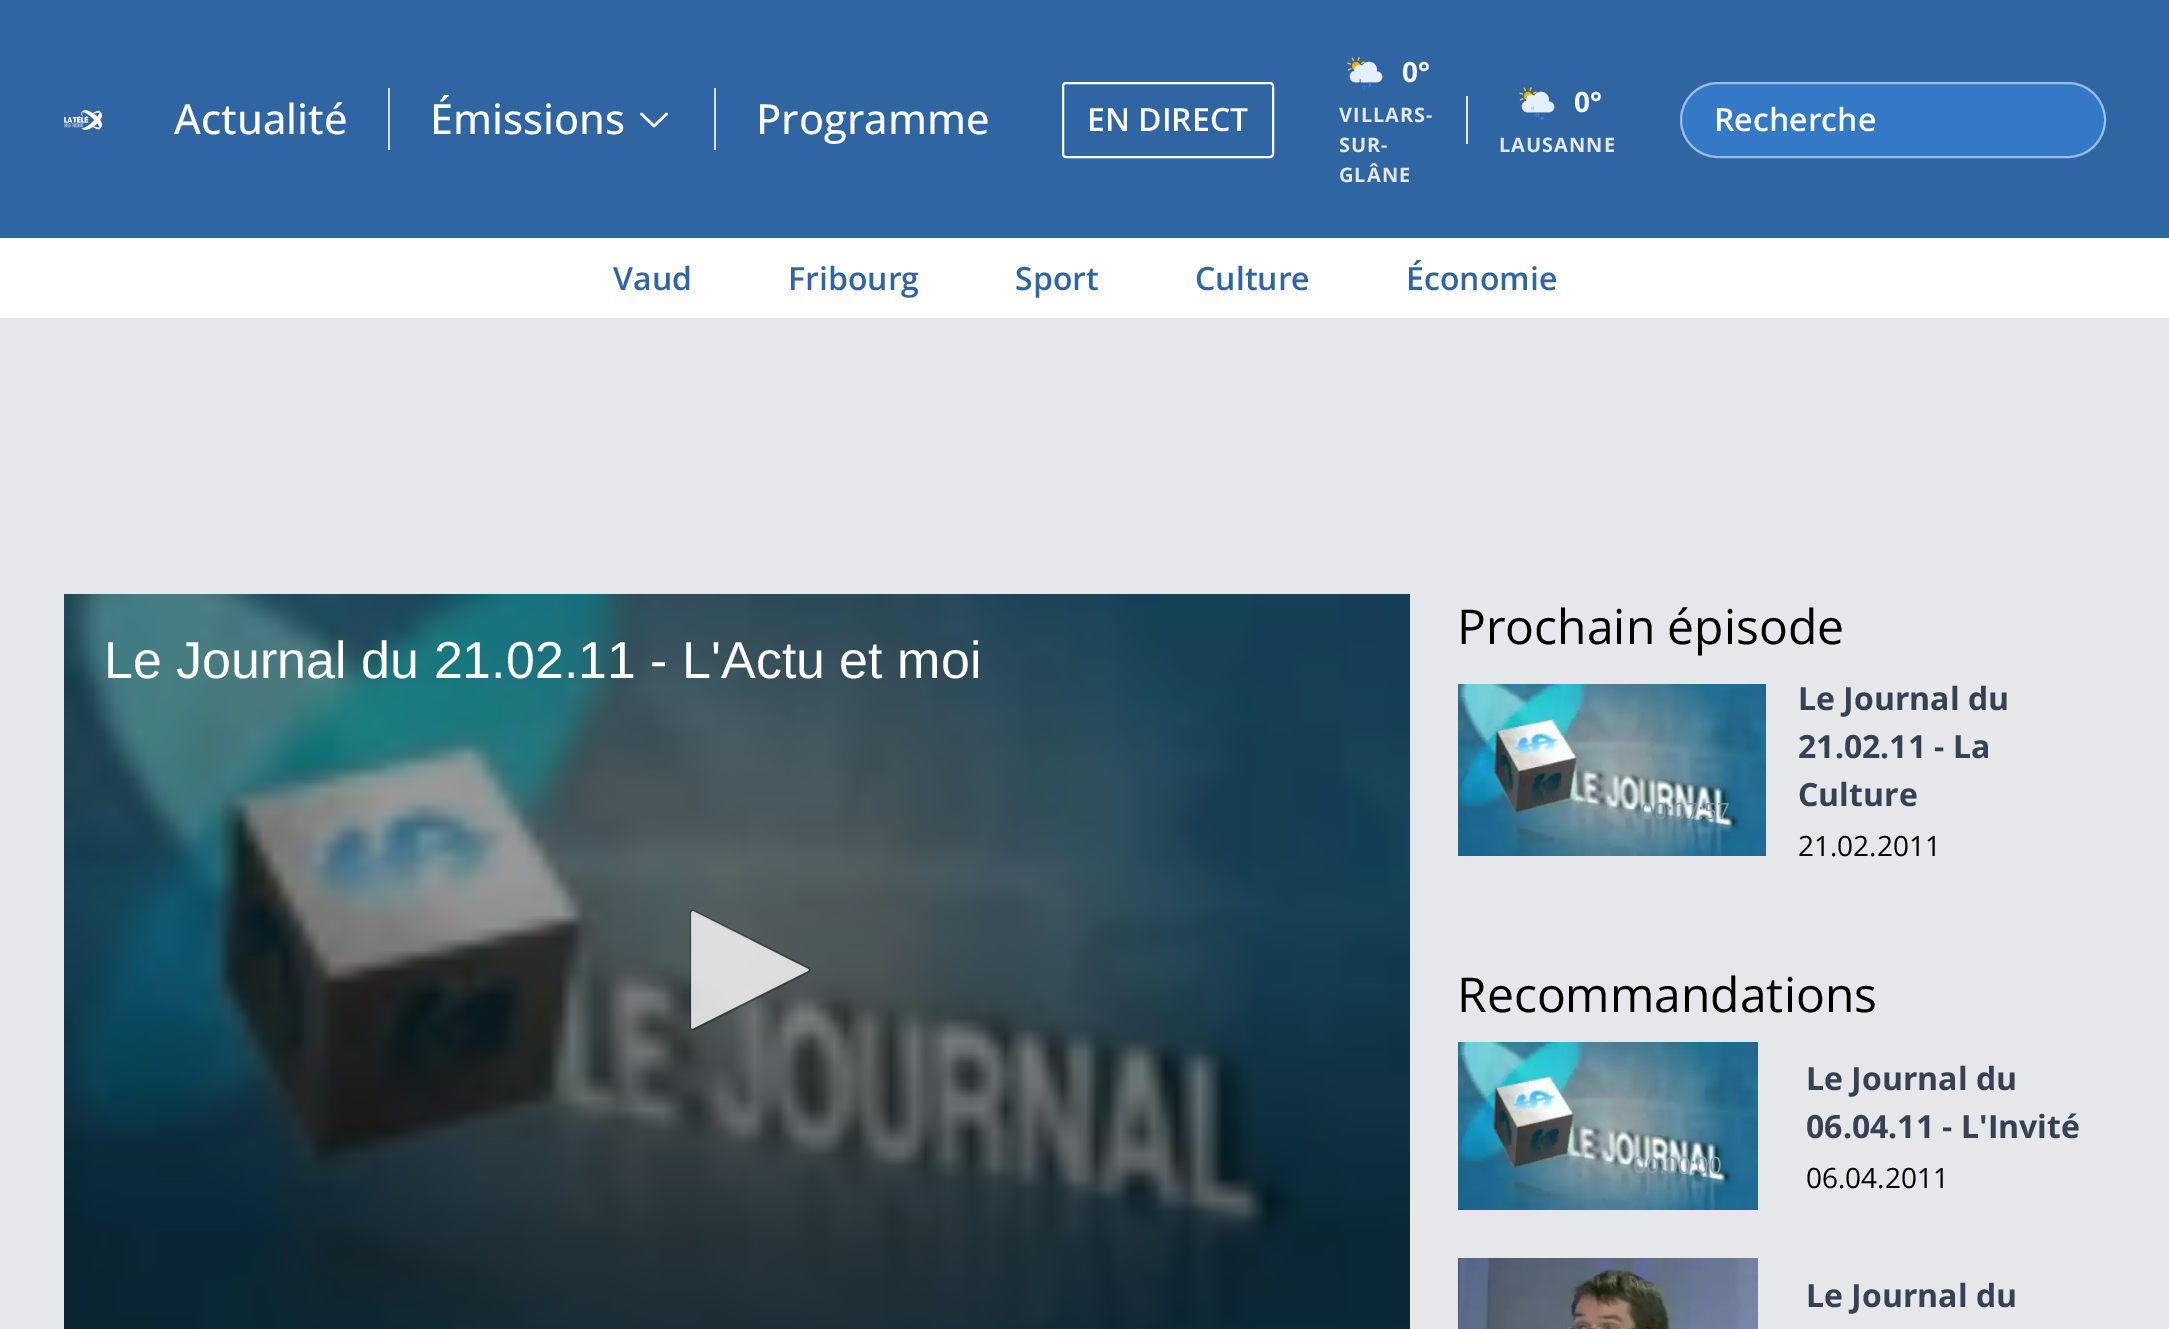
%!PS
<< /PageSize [2169 1329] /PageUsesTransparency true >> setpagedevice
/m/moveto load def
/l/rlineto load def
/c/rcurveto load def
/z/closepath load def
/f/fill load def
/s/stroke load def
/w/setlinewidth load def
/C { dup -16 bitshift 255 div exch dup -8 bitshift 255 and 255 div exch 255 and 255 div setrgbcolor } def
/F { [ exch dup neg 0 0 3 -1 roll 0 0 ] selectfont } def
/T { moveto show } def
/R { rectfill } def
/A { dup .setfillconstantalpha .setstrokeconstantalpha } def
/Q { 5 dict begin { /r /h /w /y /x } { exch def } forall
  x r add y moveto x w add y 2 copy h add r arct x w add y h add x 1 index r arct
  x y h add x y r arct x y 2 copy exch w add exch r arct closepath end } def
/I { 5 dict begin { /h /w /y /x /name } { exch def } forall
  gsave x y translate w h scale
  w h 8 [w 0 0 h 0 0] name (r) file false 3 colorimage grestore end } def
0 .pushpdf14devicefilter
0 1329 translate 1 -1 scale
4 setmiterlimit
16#E5E7EB C
0 0 2169 1329 R
16#2F65A3 C
0 0 2169 238 R
(1.rgb) 64 110 38 20 I
/OpenSans-Medium 41.5 F
16#FFFFFF C
(Actualité) 174 134 T
16#D0E2F6 C
388 88 2 62 R
16#FFFFFF C
(Émissions) 430 134 T
2.5 w
1 setlinecap
1 setlinejoin
666.5 114 m -12.5 12 l -12.5 -12 l s
16#D0E2F6 C
714 88 2 62 R
16#FFFFFF C
(Programme) 756 134 T
2 w
0 setlinecap
0 setlinejoin
1063 83 210 74 3 Q s
/OpenSans-SemiBold 32 F
(EN DIRECT) 1087 131 T
(2.rgb) 1347 57 36 34 I
/OpenSans-Bold 28 F
16#F1F5F9 C
(0°) 1402 82 T
/OpenSans-Bold 20 F
16#E2E8F0 C
1339 122 m 1 0 (VILLARS-) ashow
1339 152 m 1 0 (SUR-) ashow
1339 182 m 1 0 (GLÂNE) ashow
1466 96 2 48 R
(3.rgb) 1519 87 36 34 I
/OpenSans-Bold 28 F
16#F1F5F9 C
(0°) 1574 112 T
/OpenSans-Bold 20 F
16#E2E8F0 C
1499 152 m 1 0 (LAUSANNE) ashow
16#3479C5 C
1680 82 426 76 38 Q f
0.5 A
16#FFFFFF C
1681 83 424 74 37 Q s
/OpenSans-SemiBold 32 F
1 A
(Recherche) 1714 131 T
0 238 2169 80 R
16#2F65A3 C
(Vaud) 613 290 T
(Fribourg) 788 290 T
(Sport) 1015 290 T
(Culture) 1195 290 T
(Économie) 1406 290 T
(4.rgb) 64 594 1346 735 I
/LiberationSans-Regular 52 F
16#FFFFFF C
(Le Journal du 21.02.11 - L'Actu et moi) 104 678 T
0.3 A
16#000000 C
3.2 w
694 1028.5 m -1 .5 -2 0 -2.5 -1 c 0 -115 l 0 -1 1 -1.5 1.5 -1 c 114.5 57 l 1 .5 1.5 2 .5 2.5 c z s
0.8 A
16#FFFFFF C
694 1028 m -1 1 -2 1 -3 0 c 0 -115 l 1 -1 1 -2 2 -2 c 115 58 l 1 0 1 1 0 2 c z f
/OpenSans-Regular 48 F
1 A
16#000000 C
(Prochain épisode) 1457 644 T
(5.rgb) 1458 684 308 172 I
/OpenSans-Regular 22.5 F
16#7F97A0 C
(00:07:57) 1641 819 T
/OpenSans-Bold 32 F
16#374151 C
(Le Journal du) 1798 710 T
(21.02.11 - La) 1798 758 T
(Culture) 1798 806 T
/OpenSans-Regular 28 F
16#000000 C
(21.02.2011) 1798 856 T
/OpenSans-Regular 48 F
(Recommandations) 1457 1012 T
(6.rgb) 1458 1042 300 168 I
/OpenSans-Regular 22.5 F
16#8CA3AB C
(00:00:00) 1633 1173 T
/OpenSans-Bold 32 F
16#374151 C
(Le Journal du) 1806 1090 T
(06.04.11 - L'Invité) 1806 1138 T
/OpenSans-Regular 28 F
16#000000 C
(06.04.2011) 1806 1188 T
(7.rgb) 1458 1258 300 71 I
/OpenSans-Bold 32 F
16#374151 C
(Le Journal du) 1806 1307 T
.poppdf14devicefilter showpage
